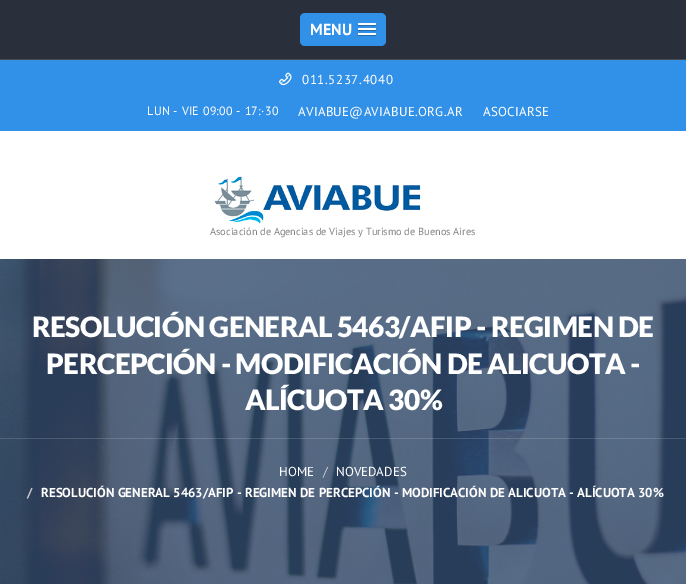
%!PS
<< /PageSize [686 584] /PageUsesTransparency true >> setpagedevice
/m/moveto load def
/l/rlineto load def
/c/rcurveto load def
/z/closepath load def
/f/fill load def
/C { dup -16 bitshift 255 div exch dup -8 bitshift 255 and 255 div exch 255 and 255 div setrgbcolor } def
/F { [ exch dup neg 0 0 3 -1 roll 0 0 ] selectfont } def
/T { moveto show } def
/R { rectfill } def
/A { dup .setfillconstantalpha .setstrokeconstantalpha } def
/Q { 5 dict begin { /r /h /w /y /x } { exch def } forall
  x r add y moveto x w add y 2 copy h add r arct x w add y h add x 1 index r arct
  x y h add x y r arct x y 2 copy exch w add exch r arct closepath end } def
/I { 5 dict begin { /h /w /y /x /name } { exch def } forall
  gsave x y translate w h scale
  w h 8 [w 0 0 h 0 0] name (r) file false 3 colorimage grestore end } def
0 .pushpdf14devicefilter
0 584 translate 1 -1 scale
4 setmiterlimit
16#29303C C
0 0 686 584 R
16#494B4C C
0 59 686 1 R
16#3190E7 C
300 13 86 33 5 Q f
/PTSans-Bold 16 F
16#FFFFFF C
(MENU) 310 35 T
16#256CAD C
358 24.5 m -1 2 3.5 1.5 3.5 1.5 c 11 0 l 0 0 4.5 .5 3.5 -1.5 c -1 1 -7.5 .5 -9 .5 c -1.5 0 -8 .5 -9 -.5 c z f
16#FFFFFF C
358 23 18 2 1 Q f
16#256CAD C
358 29.5 m -1 2 3.5 1.5 3.5 1.5 c 11 0 l 0 0 4.5 .5 3.5 -1.5 c -1 1 -7.5 .5 -9 .5 c -1.5 0 -8 .5 -9 -.5 c z f
16#FFFFFF C
358 28 18 2 1 Q f
16#256CAD C
358 34.5 m -1 2 3.5 1.5 3.5 1.5 c 11 0 l 0 0 4.5 .5 3.5 -1.5 c -1 1 -7.5 .5 -9 .5 c -1.5 0 -8 .5 -9 -.5 c z f
16#FFFFFF C
358 33 18 2 1 Q f
16#3190E7 C
0 60 686 71 R
(1.rgb) 279 72 13 14 I
/PTSans-Regular 13 F
16#FFFFFF C
302 84 m .6 0 (011.5237.4040) ashow
/PTSans-Regular 12 F
147 115 m .3 0 (LUN - VIE 09:00 - 17:·30) ashow
/PTSans-Regular 13 F
298 116 m .3 0 (AVIABUE@AVIABUE.ORG.AR) ashow
483 116 m .3 0 (ASOCIARSE) ashow
0 131 686 128 R
(2.rgb) 214 176 208 48 I
/PTSans-Regular 10.35 F
16#808080 C
(Asociación de Agencias de Viajes y Turismo de Buenos Aires) 210 235 T
(3.rgb) 0 259 686 325 I
/Lato-Black 28 F
16#FFFFFF C
32 337 m -.55 0 (RESOLUCIÓN GENERAL 5463/AFIP - REGIMEN DE) ashow
46 374 m -.55 0 (PERCEPCIÓN - MODIFICACIÓN DE ALICUOTA -) ashow
245 410 m -.55 0 (ALÍCUOTA 30%) ashow
0.15 A
0 438 686 1 R
/PTSans-Regular 13 F
1 A
(HOME) 279 476 T
16#CCCCCC C
(/) 323 476 T
16#FFFFFF C
(NOVEDADES) 336 476 T
/PTSans-Bold 13 F
16#CCCCCC C
(/) 27 497 T
16#FFFFFF C
(RESOLUCIÓN GENERAL 5463/AFIP - REGIMEN DE PERCEPCIÓN - MODIFICACIÓN DE ALICUOTA - ALÍCUOTA 30%) 41 497 T
.poppdf14devicefilter showpage
